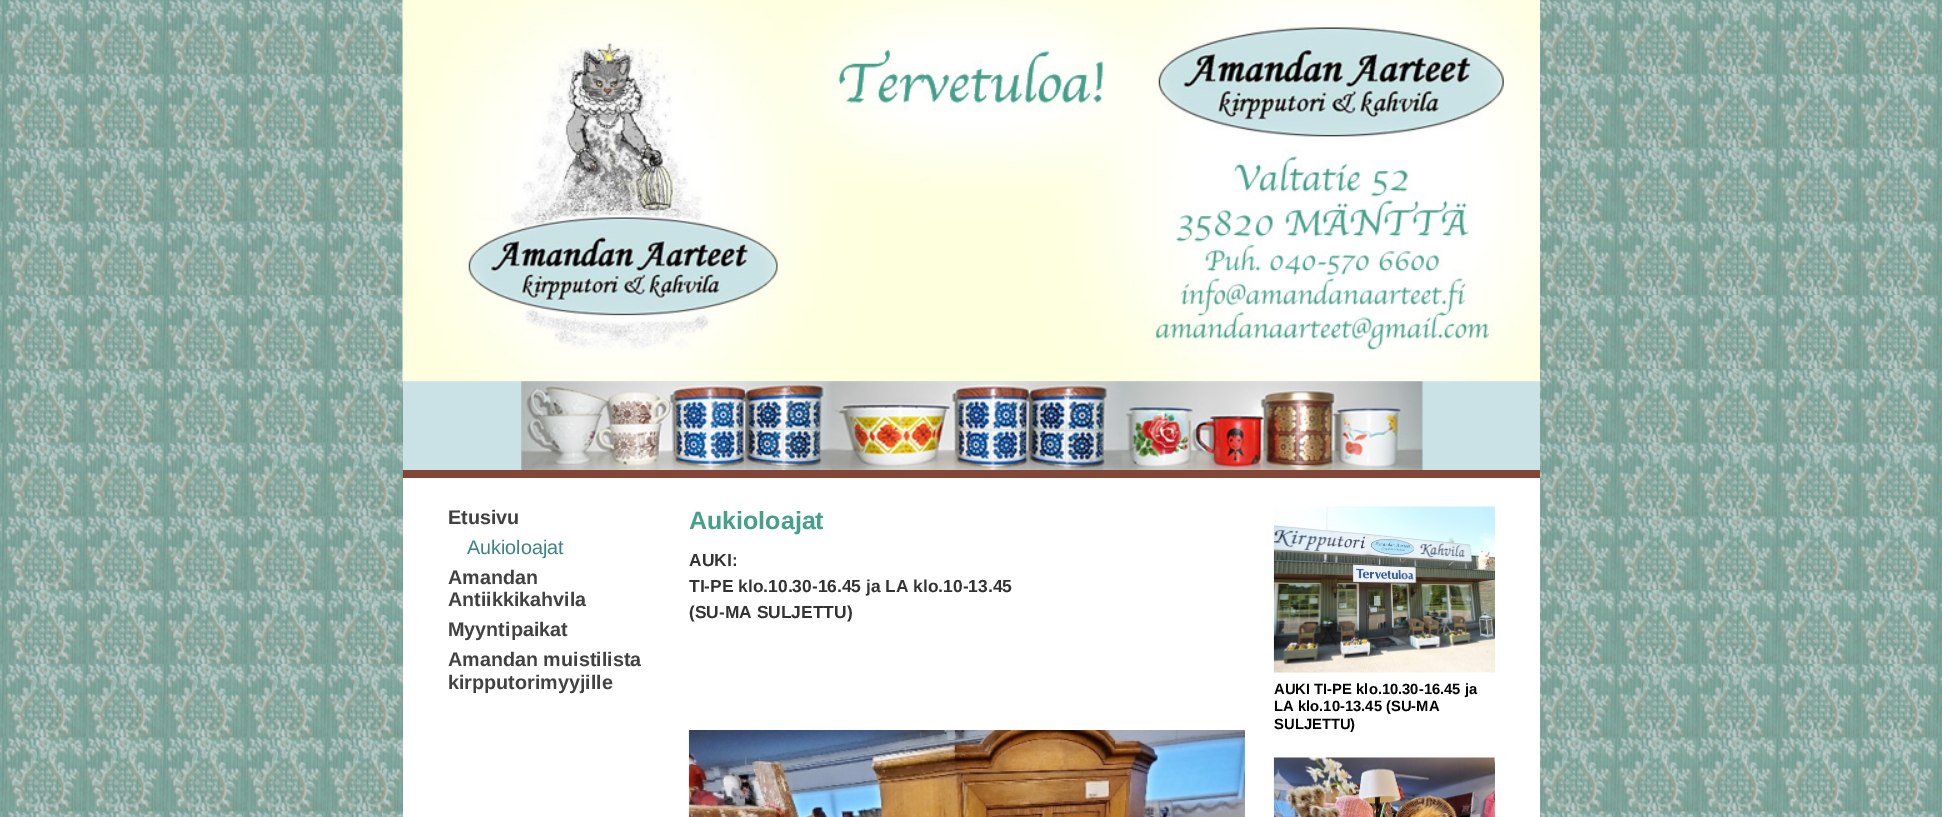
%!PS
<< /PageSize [1942 817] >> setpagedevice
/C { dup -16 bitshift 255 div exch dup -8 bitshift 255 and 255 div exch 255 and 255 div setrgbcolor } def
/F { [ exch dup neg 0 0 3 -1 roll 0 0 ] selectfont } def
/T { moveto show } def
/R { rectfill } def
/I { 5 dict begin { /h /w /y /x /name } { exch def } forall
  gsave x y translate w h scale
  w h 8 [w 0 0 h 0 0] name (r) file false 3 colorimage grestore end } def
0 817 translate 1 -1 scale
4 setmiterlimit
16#FFFFFF C
0 0 1942 817 R
(1.rgb) 0 0 1942 817 I
16#CAE2E6 C
403 381 1137 89 R
(2.rgb) 402 0 1138 382 I
(3.rgb) 521 381 902 89 I
16#FFFFFF C
403 478 1137 339 R
16#824536 C
403 470 1137 8 R
/LiberationSans-Bold 19.75 F
16#404242 C
(Etusivu) 448 524 T
/LiberationSans-Regular 19.75 F
16#3D8386 C
(Aukioloajat) 467 554 T
/LiberationSans-Bold 19.75 F
16#404242 C
(Amandan) 448 584 T
(Antiikkikahvila) 448 606 T
(Myyntipaikat) 448 636 T
(Amandan muistilista) 448 666 T
(kirpputorimyyjille) 448 689 T
/LiberationSans-Bold 25 F
16#459F89 C
(Aukioloajat) 689 529 T
/LiberationSans-Bold 17.4 F
16#333333 C
(AUKI:) 689 566 T
(TI-PE klo.10.30-16.45 ja LA klo.10-13.45) 689 592 T
(\(SU-MA SULJETTU\)) 689 618 T
(4.rgb) 688 730 557 87 I
(5.rgb) 1273 506 222 167 I
/LiberationSans-Bold 14.8 F
16#000000 C
(AUKI TI-PE klo.10.30-16.45 ja) 1274 694 T
(LA klo.10-13.45 \(SU-MA) 1274 711 T
(SULJETTU\)) 1274 729 T
(6.rgb) 1273 757 222 60 I
showpage
